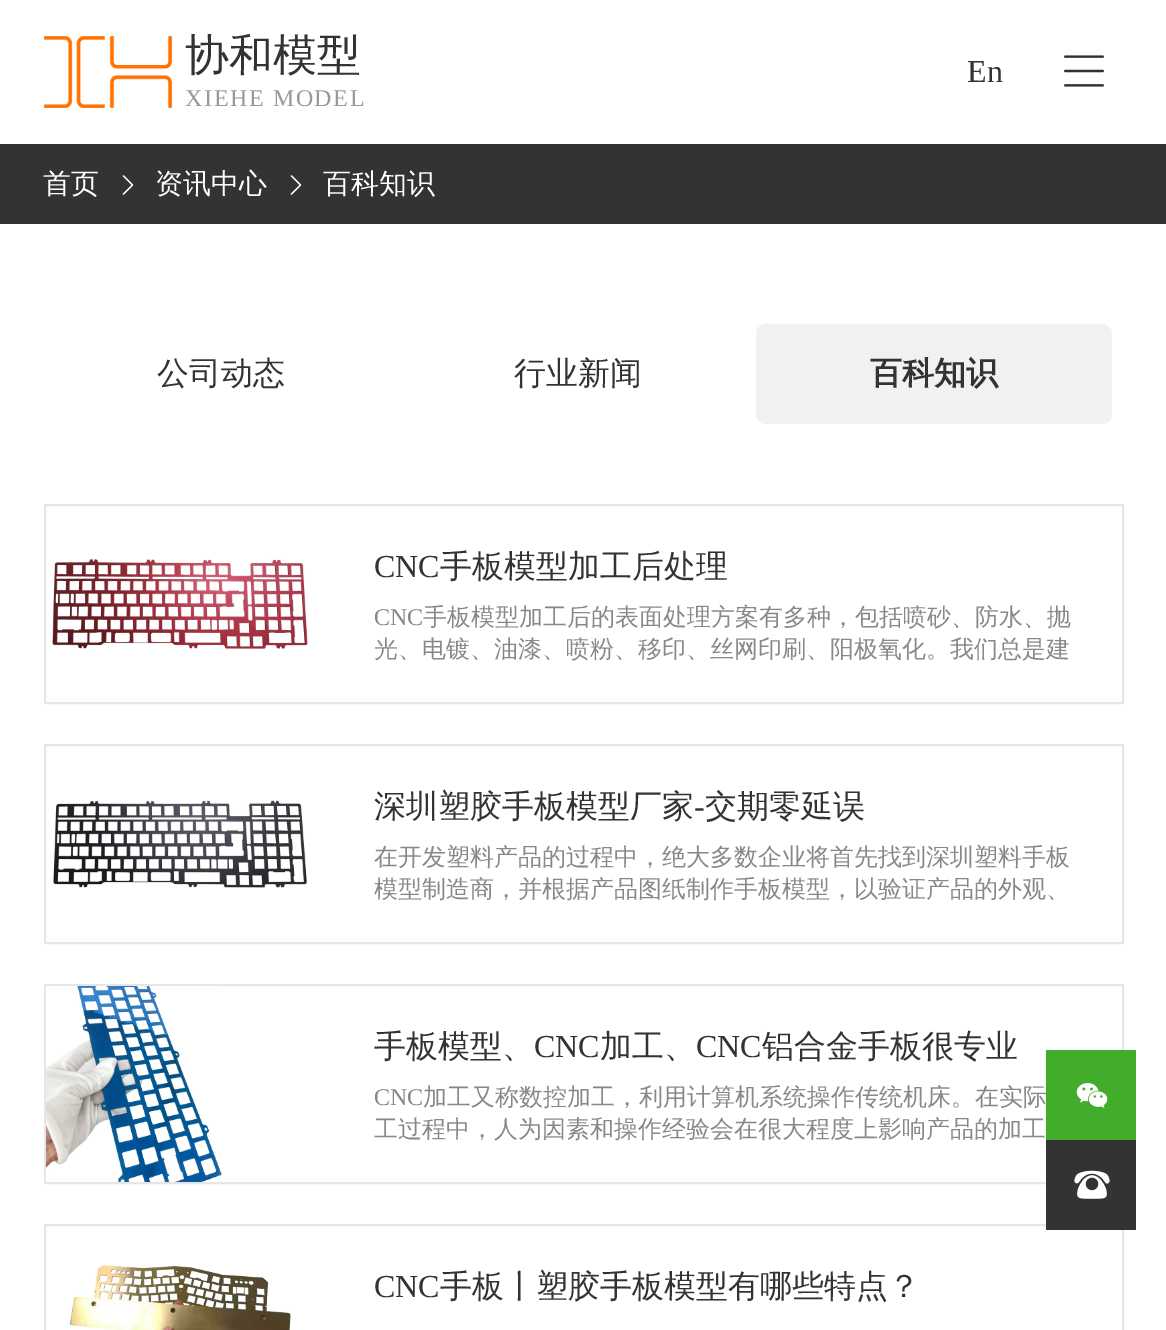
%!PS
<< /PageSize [1166 1330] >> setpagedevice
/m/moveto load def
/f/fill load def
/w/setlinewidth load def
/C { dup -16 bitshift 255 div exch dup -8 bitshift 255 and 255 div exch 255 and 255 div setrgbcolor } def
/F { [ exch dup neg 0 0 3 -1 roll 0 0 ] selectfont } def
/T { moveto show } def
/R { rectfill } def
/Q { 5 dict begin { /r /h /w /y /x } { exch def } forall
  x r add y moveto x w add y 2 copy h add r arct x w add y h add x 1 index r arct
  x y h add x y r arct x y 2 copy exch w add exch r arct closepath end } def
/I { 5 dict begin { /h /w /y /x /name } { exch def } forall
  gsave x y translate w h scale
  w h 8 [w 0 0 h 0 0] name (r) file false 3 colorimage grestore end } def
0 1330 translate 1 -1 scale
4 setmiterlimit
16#FFFFFF C
0 0 1166 1330 R
(1.rgb) 44 36 129 72 I
/WenQuanYiZenHei-Medium 44 F
16#333333 C
(协和模型) 185 70 T
/LiberationSerif-Regular 24 F
16#999999 C
185 106 m 1.6 0 (XIEHE MODEL) ashow
/LiberationSerif-Regular 32 F
16#333333 C
(En) 967 82 T
(2.rgb) 1064 55 40 32 I
0 144 1166 80 R
/WenQuanYiZenHei-Medium 28 F
16#FFFFFF C
(首页) 43 193 T
(3.rgb) 122 175 12 20 I
(资讯中心) 155 193 T
(3.rgb) 290 175 12 20 I
(百科知识) 323 193 T
/WenQuanYiZenHei-Medium 32 F
16#333333 C
(公司动态) 157 384 T
(行业新闻) 514 384 T
16#F1F1F1 C
756 324 356 100 10 Q f
/WenQuanYiZenHei-Bold 32 F
16#333333 C
(百科知识) 870 384 T
16#E6E6E6 C
2 w
45 505 1078 198 rectstroke
(4.rgb) 52 559 256 90 I
/LiberationSerif-Regular 32 F
16#333333 C
(CNC) 374 577 T
/WenQuanYiZenHei-Medium 32 F
(手板模型加工后处理) 440 577 T
/LiberationSerif-Regular 24 F
16#888888 C
(CNC) 374 625 T
/WenQuanYiZenHei-Medium 24 F
(手板模型加工后的表面处理方案有多种，包括喷砂、防水、抛) 423 625 T
(光、电镀、油漆、喷粉、移印、丝网印刷、阳极氧化。我们总是建) 374 657 T
16#E6E6E6 C
45 745 1078 198 rectstroke
(5.rgb) 53 800 255 88 I
/WenQuanYiZenHei-Medium 32 F
16#333333 C
(深圳塑胶手板模型厂家) 374 817 T
/LiberationSerif-Regular 32 F
(-) 694 817 T
/WenQuanYiZenHei-Medium 32 F
(交期零延误) 705 817 T
/WenQuanYiZenHei-Medium 24 F
16#888888 C
(在开发塑料产品的过程中，绝大多数企业将首先找到深圳塑料手板) 374 865 T
(模型制造商，并根据产品图纸制作手板模型，以验证产品的外观、) 374 897 T
16#E6E6E6 C
45 985 1078 198 rectstroke
(6.rgb) 46 986 176 196 I
/WenQuanYiZenHei-Medium 32 F
16#333333 C
(手板模型、) 374 1057 T
/LiberationSerif-Regular 32 F
(CNC) 534 1057 T
/WenQuanYiZenHei-Medium 32 F
(加工、) 600 1057 T
/LiberationSerif-Regular 32 F
(CNC) 696 1057 T
/WenQuanYiZenHei-Medium 32 F
(铝合金手板很专业) 762 1057 T
/LiberationSerif-Regular 24 F
16#888888 C
(CNC) 374 1105 T
/WenQuanYiZenHei-Medium 24 F
(加工又称数控加工，利用计算机系统操作传统机床。在实际) 423 1105 T
(工过程中，人为因素和操作经验会在很大程度上影响产品的加工) 374 1137 T
16#E6E6E6 C
45 1225 1078 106 rectstroke
(7.rgb) 69 1264 222 66 I
/LiberationSerif-Regular 32 F
16#333333 C
(CNC) 374 1297 T
/WenQuanYiZenHei-Medium 32 F
(手板丨塑胶手板模型有哪些特点？) 440 1297 T
16#42AC2B C
1046 1050 90 90 R
(8.rgb) 1076 1083 32 25 I
16#333333 C
1046 1140 90 90 R
(9.rgb) 1074 1170 36 29 I
showpage
